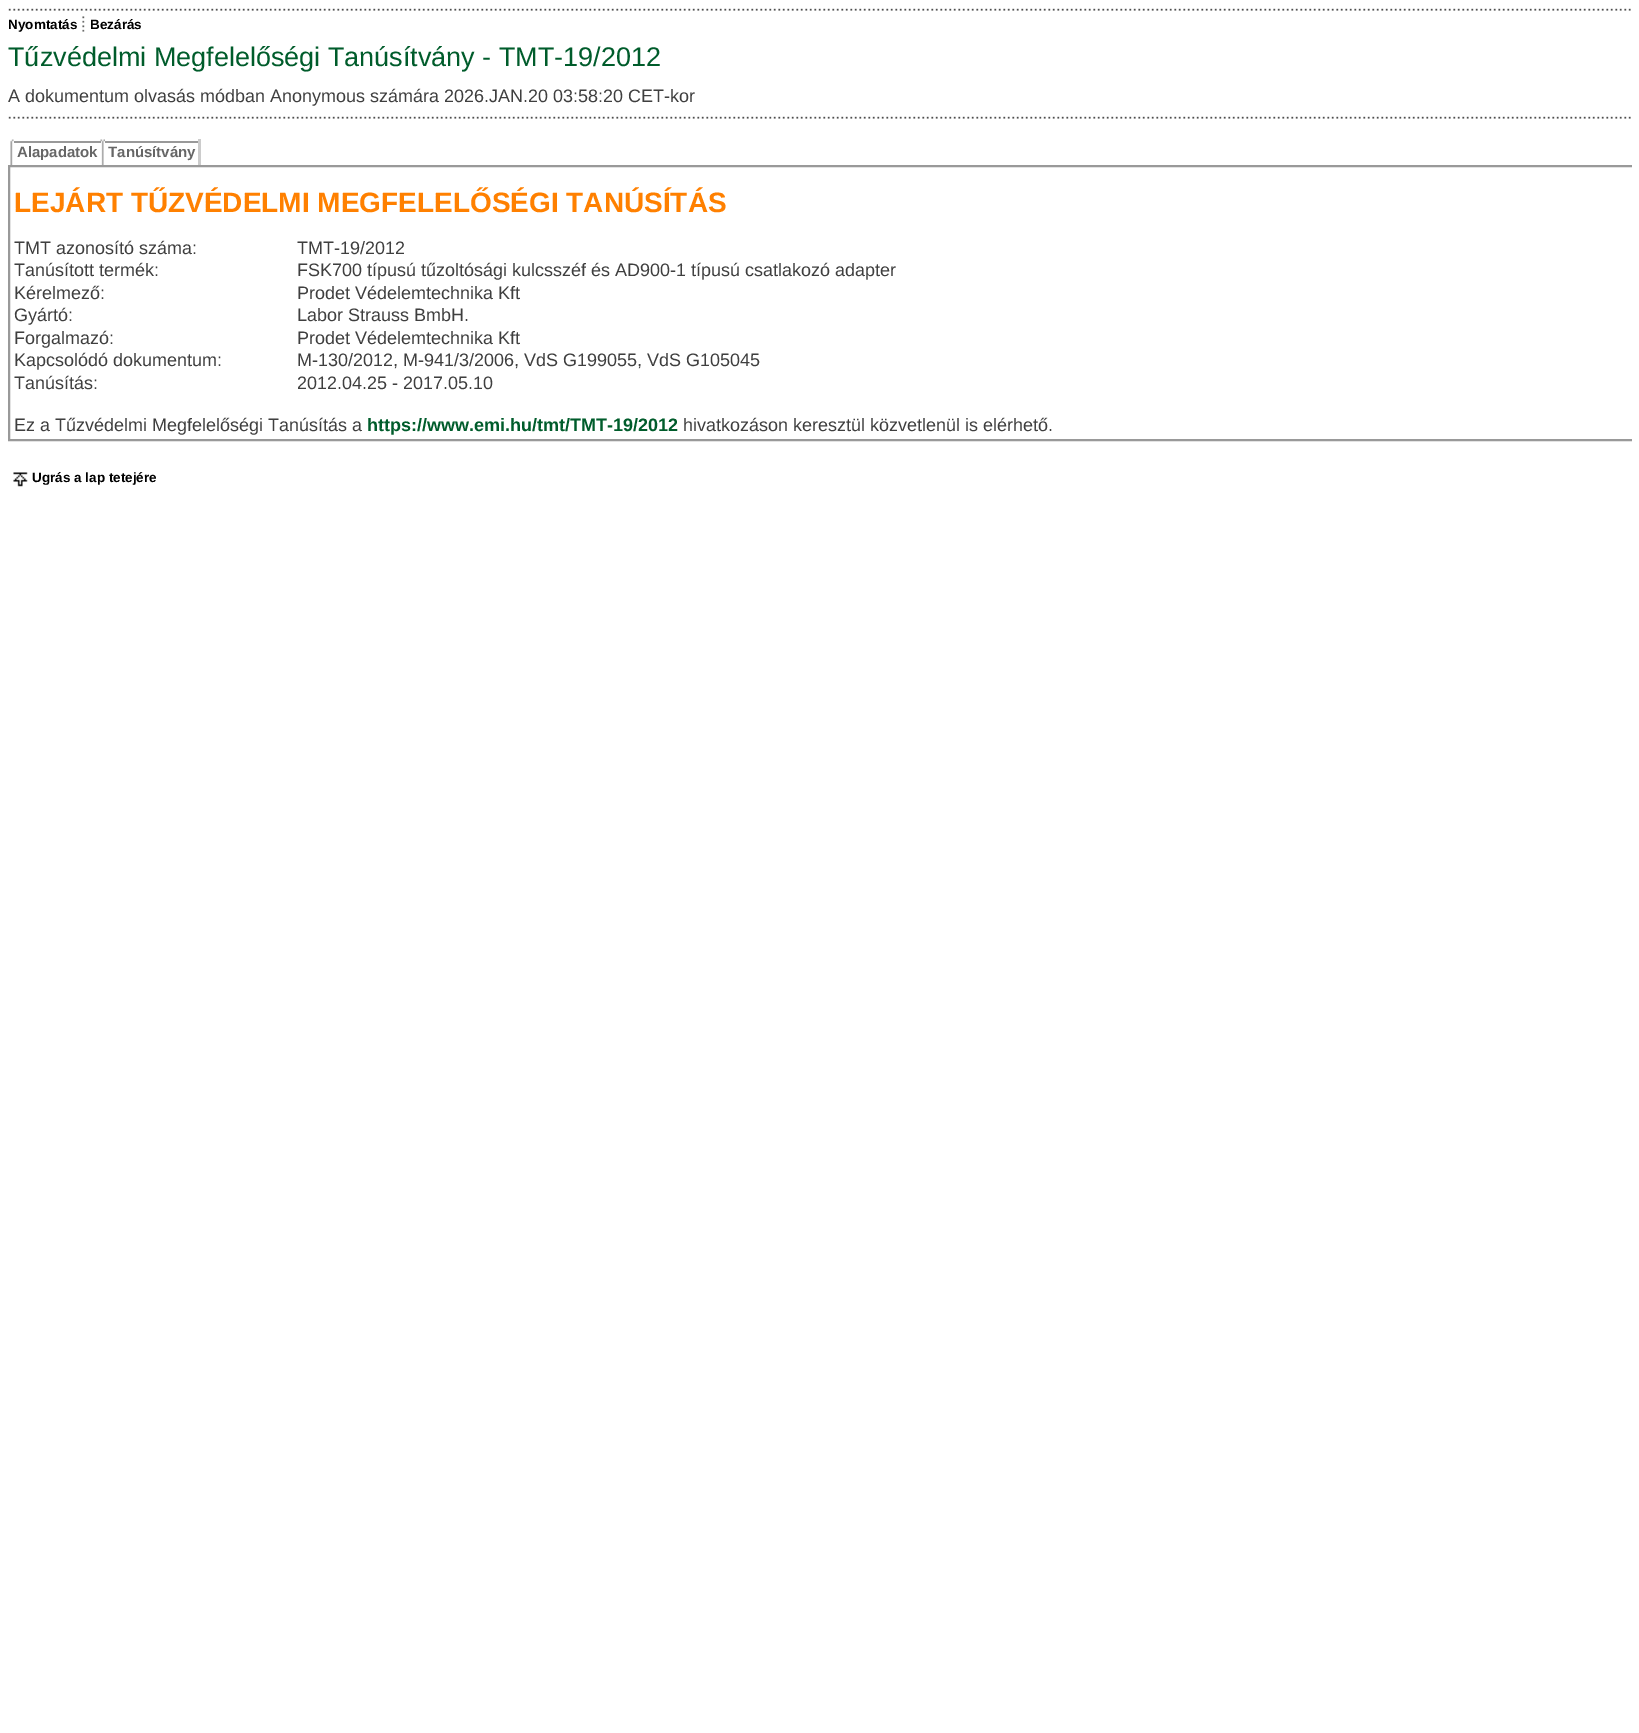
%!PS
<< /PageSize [1639 1733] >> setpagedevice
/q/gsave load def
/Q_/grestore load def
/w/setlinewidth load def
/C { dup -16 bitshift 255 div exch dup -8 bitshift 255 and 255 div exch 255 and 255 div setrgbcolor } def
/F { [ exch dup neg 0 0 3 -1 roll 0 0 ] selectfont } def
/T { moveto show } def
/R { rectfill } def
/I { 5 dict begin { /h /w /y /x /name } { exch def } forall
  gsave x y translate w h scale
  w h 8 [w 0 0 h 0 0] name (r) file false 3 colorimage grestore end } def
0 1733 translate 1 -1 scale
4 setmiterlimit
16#FFFFFF C
0 0 1639 1733 R
(1.rgb) 8 8 1623 3 I
/LiberationSans-Bold 13.5 F
16#000000 C
(Nyomtatás) 8 29 T
(2.rgb) 82 16 3 16 I
(Bezárás) 90 29 T
/LiberationSans-Regular 27 F
16#005C2B C
(Tűzvédelmi Megfelelőségi Tanúsítvány - TMT-19/2012) 8 66 T
/LiberationSans-Regular 18 F
16#3F3F3F C
(A dokumentum olvasás módban Anonymous számára 2026.JAN.20 03:58:20 CET-kor) 8 102 T
(1.rgb) 8 116 1623 3 I
(3.rgb) 10 139 4 26 I
/LiberationSans-Bold 15 F
16#666666 C
(Alapadatok) 17 157 T
16#999999 C
14 141 87 2 R
(4.rgb) 100 139 5 26 I
16#666666 C
(Tanúsítvány) 108 157 T
16#999999 C
105 141 93 2 R
16#CCCCCC C
198 139 3 26 R
q
8 138 1624 1589 rectclip
16#999999 C
2 w
9 166 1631 274 rectstroke
Q_
/LiberationSans-Bold 28 F
16#FF8000 C
(LEJÁRT TŰZVÉDELMI MEGFELELŐSÉGI TANÚSÍTÁS) 14 212 T
/LiberationSans-Regular 18 F
16#3F3F3F C
(TMT azonosító száma:) 14 254 T
(TMT-19/2012) 297 254 T
(Tanúsított termék:) 14 276 T
(FSK700 típusú tűzoltósági kulcsszéf és AD900-1 típusú csatlakozó adapter) 297 276 T
(Kérelmező:) 14 299 T
(Prodet Védelemtechnika Kft) 297 299 T
(Gyártó:) 14 321 T
(Labor Strauss BmbH.) 297 321 T
(Forgalmazó:) 14 344 T
(Prodet Védelemtechnika Kft) 297 344 T
(Kapcsolódó dokumentum:) 14 366 T
(M-130/2012, M-941/3/2006, VdS G199055, VdS G105045) 297 366 T
(Tanúsítás:) 14 389 T
(2012.04.25 - 2017.05.10) 297 389 T
(Ez a Tűzvédelmi Megfelelőségi Tanúsítás a) 14 431 T
/LiberationSans-Bold 18 F
16#005C2B C
(https://www.emi.hu/tmt/TMT-19/2012) 367 431 T
/LiberationSans-Regular 18 F
16#3F3F3F C
(hivatkozáson keresztül közvetlenül is elérhető.) 683 431 T
(5.rgb) 13 472 15 15 I
/LiberationSans-Bold 13.5 F
16#000000 C
(Ugrás a lap tetejére) 32 482 T
showpage
